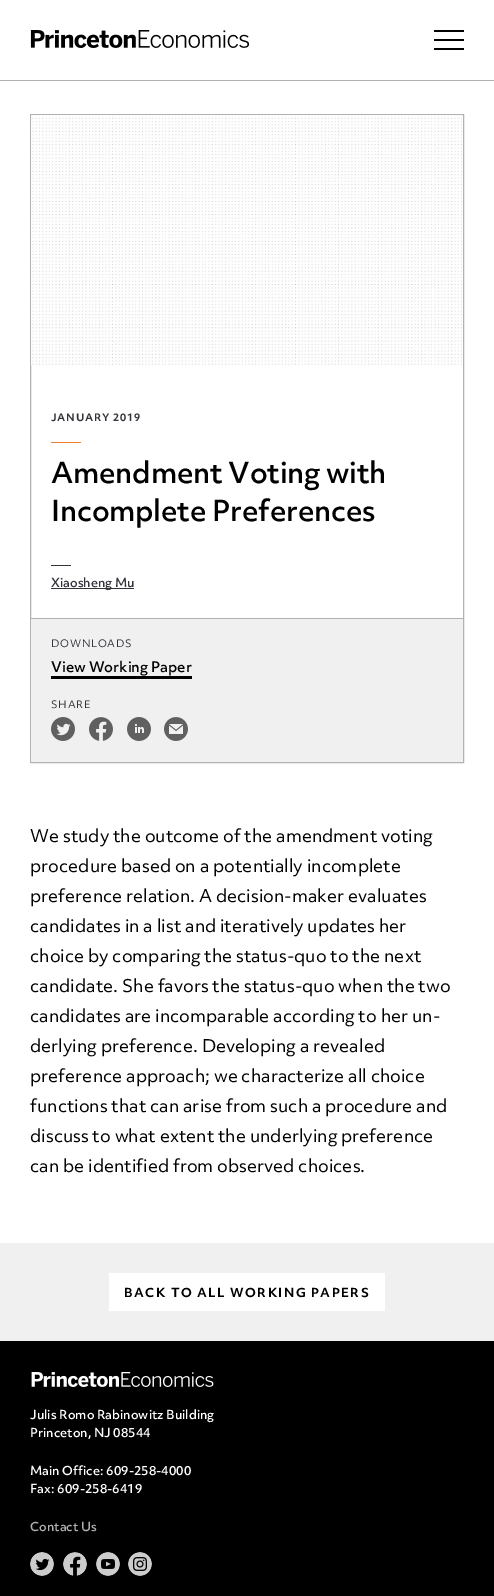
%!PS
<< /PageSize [494 1596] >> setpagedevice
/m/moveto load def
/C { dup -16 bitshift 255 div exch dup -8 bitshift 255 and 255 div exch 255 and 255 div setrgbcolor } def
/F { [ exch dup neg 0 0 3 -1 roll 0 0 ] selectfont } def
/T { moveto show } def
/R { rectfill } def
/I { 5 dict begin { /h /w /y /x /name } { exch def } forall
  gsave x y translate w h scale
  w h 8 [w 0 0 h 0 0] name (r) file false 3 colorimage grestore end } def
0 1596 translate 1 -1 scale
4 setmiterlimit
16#FFFFFF C
0 0 494 1596 R
16#B1B3B3 C
0 80 494 1 R
(1.rgb) 30 30 220 18 I
16#000000 C
434 39 30 2 R
434 30 30 2 R
434 48 30 2 R
16#B1B3B3 C
30.5 114.5 433 648 rectstroke
31 618 432 1 R
(2.rgb) 31 115 431 250 I
/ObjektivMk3-Bold 10 F
16#33333A C
51 421 m .75 0 (JANUARY 2019) ashow
16#EE7F2D C
51 442 30 1 R
/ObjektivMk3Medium-Medium 28 F
16#000000 C
51 483 m -.25 0 (Amendment Voting with) ashow
51 521 m -.25 0 (Incomplete Preferences) ashow
16#33333A C
51 565 20 1 R
51 588 83 1 R
/ObjektivMk3Medium-Medium 12 F
(Xiaosheng Mu) 51 587 T
16#F0F0F0 C
31 619 432 143 R
/ObjektivMk3-Regular 10 F
16#33333A C
51 647 m .75 0 (DOWNLOADS) ashow
/ObjektivMk3Medium-Medium 14 F
16#000000 C
(View Working Paper) 51 672 T
51 676 141 3 R
/ObjektivMk3-Regular 10 F
16#33333A C
51 708 m .75 0 (SHARE) ashow
(3.rgb) 51 717 24 24 I
(4.rgb) 89 717 24 24 I
(5.rgb) 127 717 24 24 I
(6.rgb) 164 717 24 24 I
/ObjektivMk3-Regular 17 F
16#000000 C
(We study the outcome of the amendment voting) 30 842 T
(procedure based on a potentially incomplete) 30 872 T
(preference relation. A decision-maker evaluates) 30 902 T
(candidates in a list and iteratively updates her) 30 932 T
(choice by comparing the status-quo to the next) 30 962 T
(candidate. She favors the status-quo when the two) 30 992 T
(candidates are incomparable according to her un-) 30 1022 T
(derlying preference. Developing a revealed) 30 1052 T
(preference approach; we characterize all choice) 30 1082 T
(functions that can arise from such a procedure and) 30 1112 T
(discuss to what extent the underlying preference) 30 1142 T
(can be identified from observed choices.) 30 1172 T
16#F0F0F0 C
0 1243 494 98 R
16#FFFFFF C
109 1273 276 38 R
/ObjektivMk3-Bold 12 F
16#000000 C
124 1297 m 1.45 0 (BACK TO ALL WORKING PAPERS) ashow
0 1341 494 255 R
(7.rgb) 31 1372 183 15 I
/ObjektivMk3Medium-Medium 12 F
16#FFFFFF C
(Julis Romo Rabinowitz Building) 30 1419 T
(Princeton, NJ 08544) 30 1437 T
(Main Office: 609-258-4000) 30 1475 T
(Fax: 609-258-6419) 30 1493 T
16#B1B3B3 C
(Contact Us) 30 1531 T
(8.rgb) 30 1552 24 24 I
(9.rgb) 63 1552 24 24 I
(10.rgb) 96 1552 24 24 I
(11.rgb) 128 1552 24 24 I
showpage
